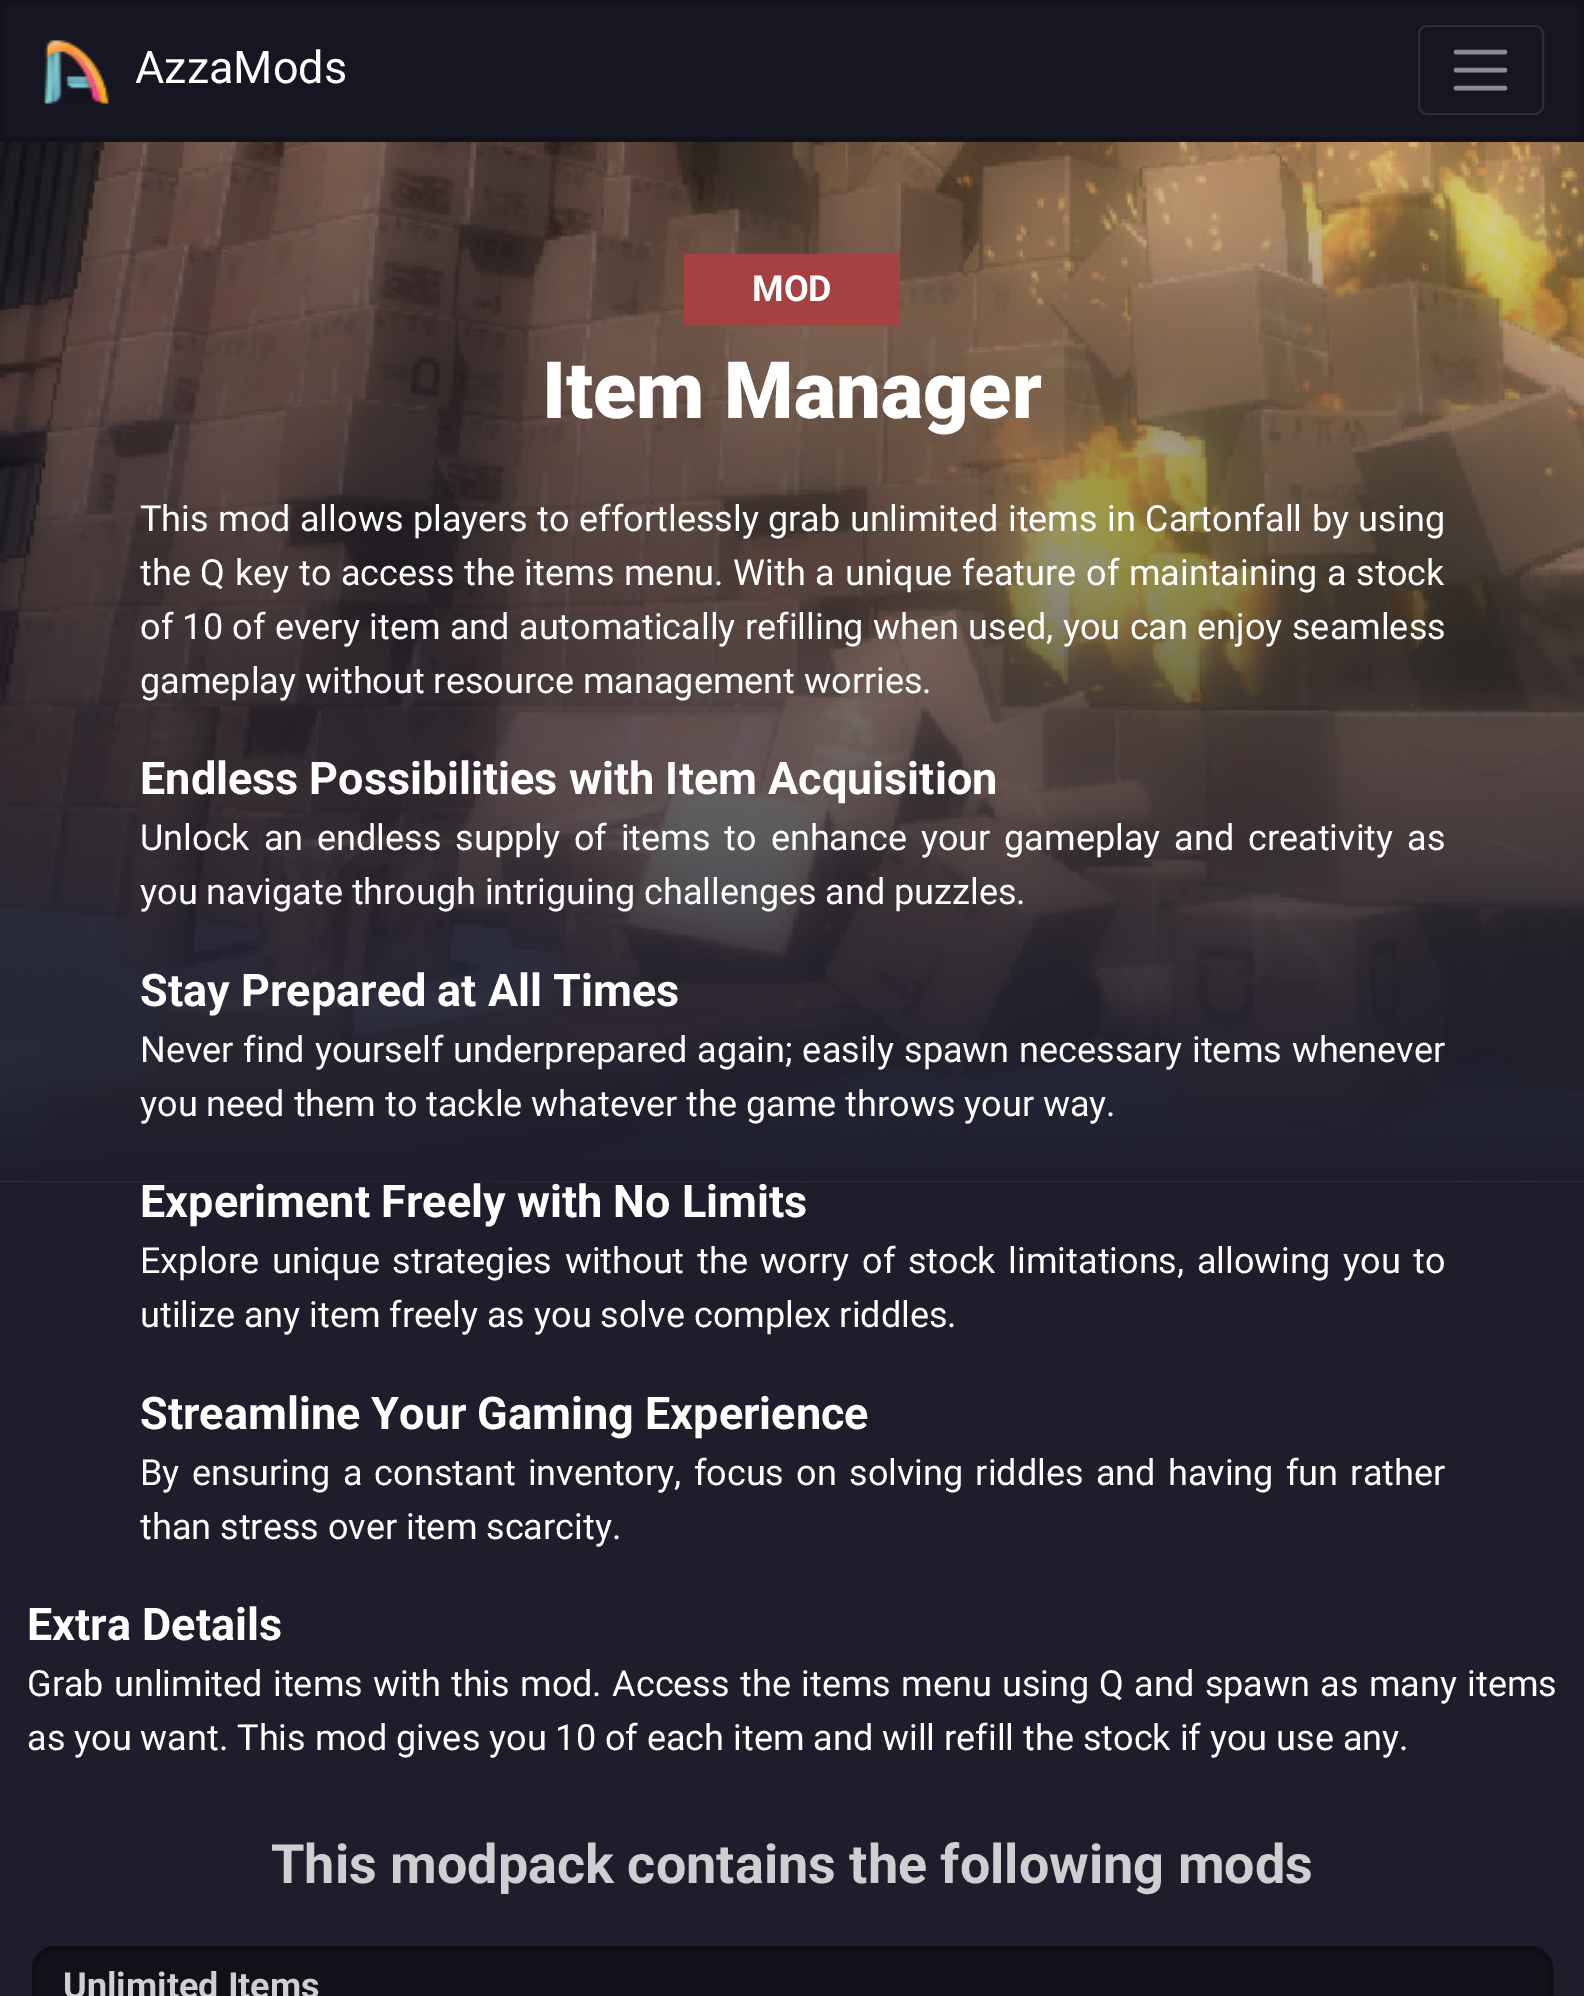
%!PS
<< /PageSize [1584 1996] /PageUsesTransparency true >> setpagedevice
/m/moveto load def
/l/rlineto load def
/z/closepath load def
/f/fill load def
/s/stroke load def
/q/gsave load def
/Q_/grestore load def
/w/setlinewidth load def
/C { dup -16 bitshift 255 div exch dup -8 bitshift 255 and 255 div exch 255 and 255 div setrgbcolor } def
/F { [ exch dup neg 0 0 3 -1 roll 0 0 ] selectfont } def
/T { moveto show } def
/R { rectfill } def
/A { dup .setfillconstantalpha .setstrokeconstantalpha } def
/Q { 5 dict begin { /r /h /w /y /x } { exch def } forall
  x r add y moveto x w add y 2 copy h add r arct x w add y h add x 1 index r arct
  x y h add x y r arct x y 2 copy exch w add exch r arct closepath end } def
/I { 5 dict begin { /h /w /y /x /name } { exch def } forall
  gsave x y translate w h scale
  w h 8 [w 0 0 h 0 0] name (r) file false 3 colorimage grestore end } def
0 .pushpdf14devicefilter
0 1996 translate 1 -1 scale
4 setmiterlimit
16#1D1D2C C
0 0 1584 1996 R
16#161622 C
2.5 2.5 m 1579 0 l 0 137 l -1579 0 l z q f Q_
16#12121B C
5 w
s
(1.rgb) 44 40 65 65 I
/Roboto-Regular 45 F
16#FFFFFF C
(AzzaMods) 135 83 T
16#2D2D38 C
2 w
1419 26 124 88 8 Q s
16#8B8B91 C
4.5 w
1 setlinecap
1456 52 m 49 0 l 1456 70 m 49 0 l 1456 88 m 49 0 l s
(2.rgb) 0 142 1584 1040 I
16#A54141 C
684 254 216 72 R
/Roboto-Bold 36 F
16#FFFFFF C
(MOD) 752 301 T
/Roboto-Black 79.25 F
(Item Manager) 542 418 T
/Roboto-Regular 36 F
140 531 m .5 0 32 (This mod allows players to effortlessly grab unlimited items in Cartonfall by using) widthshow
140 585 m .75 0 32 (the Q key to access the items menu. With a unique feature of maintaining a stock) widthshow
140 639 m .5 0 32 (of 10 of every item and automatically refilling when used, you can enjoy seamless) widthshow
(gameplay without resource management worries.) 140 693 T
/Roboto-Bold 45 F
(Endless Possibilities with Item Acquisition) 140 794 T
/Roboto-Regular 36 F
140 850 m 5 0 32 (Unlock an endless supply of items to enhance your gameplay and creativity as) widthshow
(you navigate through intriguing challenges and puzzles.) 140 904 T
/Roboto-Bold 45 F
(Stay Prepared at All Times) 140 1006 T
/Roboto-Regular 36 F
140 1062 m .9 0 32 (Never find yourself underprepared again; easily spawn necessary items whenever) widthshow
(you need them to tackle whatever the game throws your way.) 140 1116 T
/Roboto-Bold 45 F
(Experiment Freely with No Limits) 140 1217 T
/Roboto-Regular 36 F
140 1273 m 3.75 0 32 (Explore unique strategies without the worry of stock limitations, allowing you to) widthshow
(utilize any item freely as you solve complex riddles.) 140 1327 T
/Roboto-Bold 45 F
(Streamline Your Gaming Experience) 140 1429 T
/Roboto-Regular 36 F
140 1485 m 3.4 0 32 (By ensuring a constant inventory, focus on solving riddles and having fun rather) widthshow
(than stress over item scarcity.) 140 1539 T
/Roboto-Bold 45 F
(Extra Details) 27 1640 T
/Roboto-Regular 36 F
27 1696 m 1.4 0 32 (Grab unlimited items with this mod. Access the items menu using Q and spawn as many items) widthshow
(as you want. This mod gives you 10 of each item and will refill the stock if you use any.) 27 1750 T
/Roboto-Bold 54 F
16#CFCFD1 C
(This modpack contains the following mods) 271 1883 T
16#11111A C
32 1946 1521 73 23 Q f
0.2 A
16#000000 C
5 w
0 setlinecap
34.5 1948.5 1516 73 20.5 Q s
/Roboto-Bold 36 F
1 A
16#CFCFD1 C
(Unlimited Items) 63 1998 T
.poppdf14devicefilter showpage
